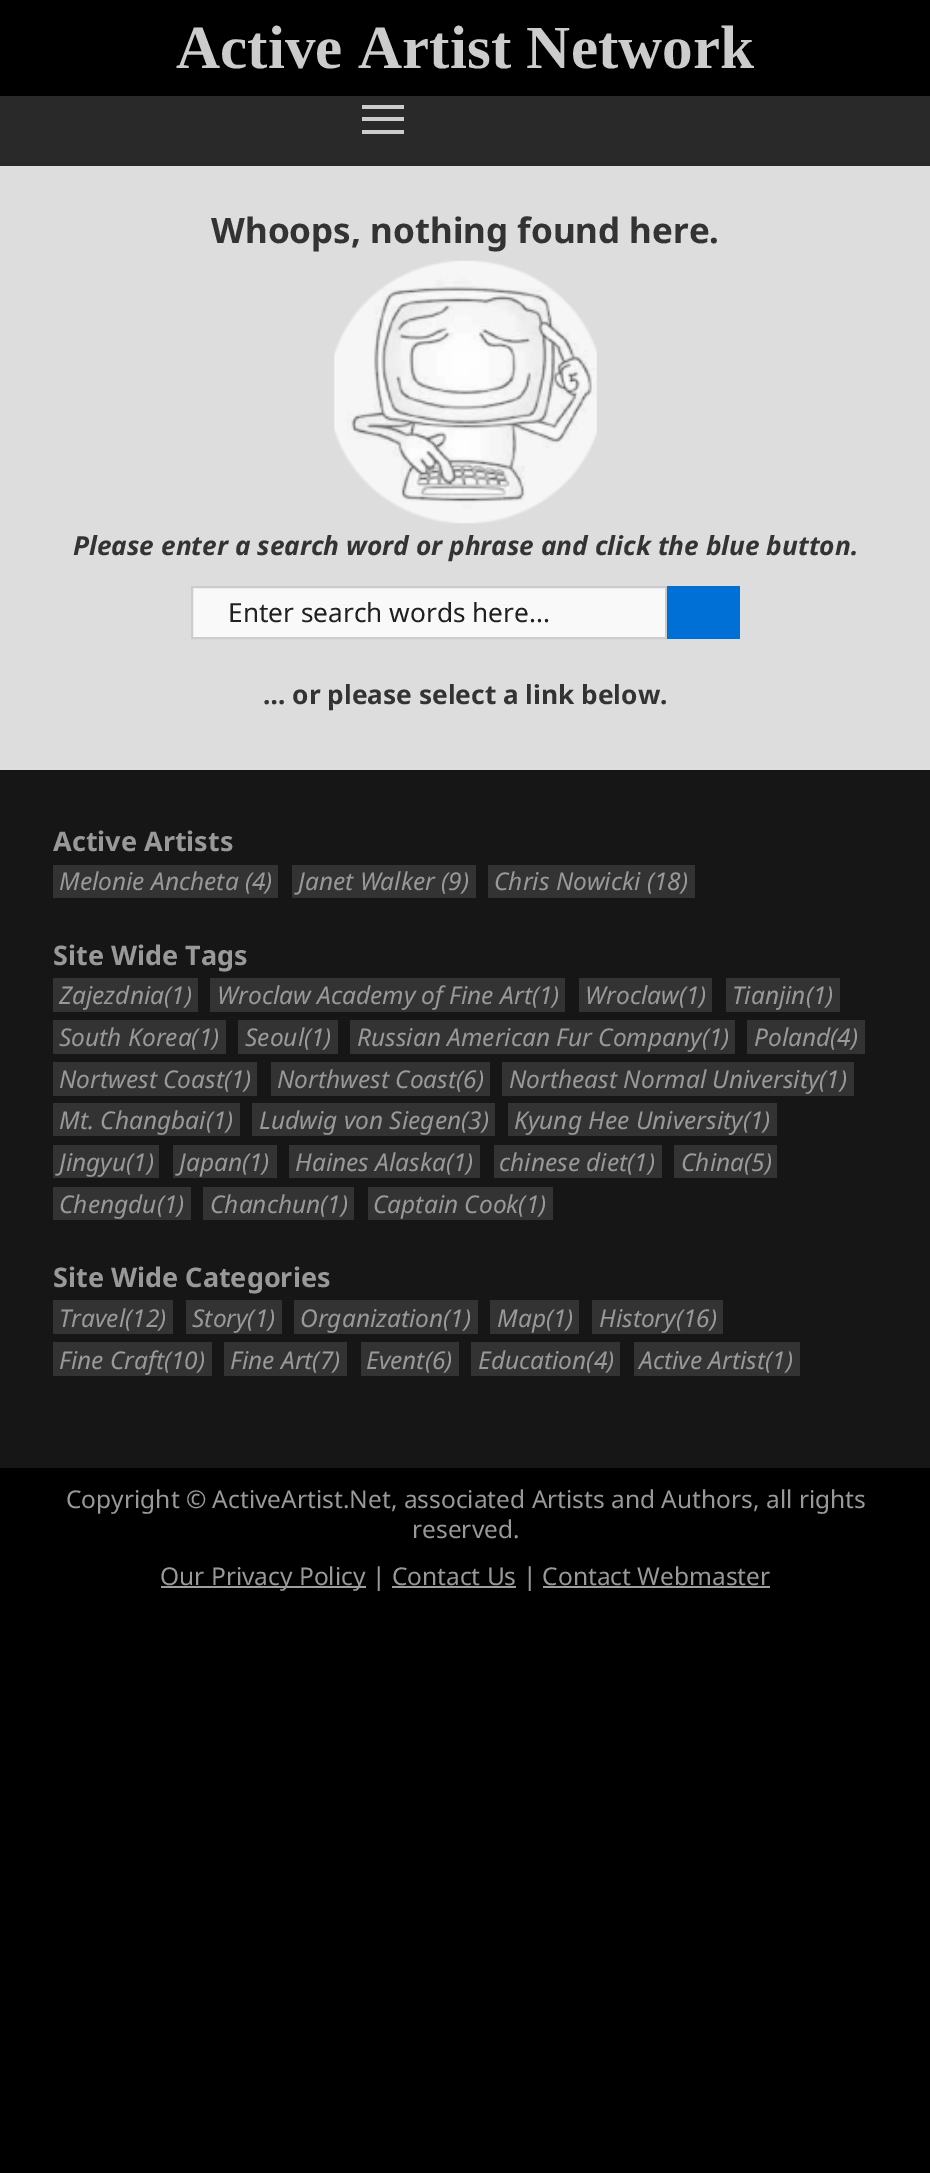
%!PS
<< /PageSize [930 2173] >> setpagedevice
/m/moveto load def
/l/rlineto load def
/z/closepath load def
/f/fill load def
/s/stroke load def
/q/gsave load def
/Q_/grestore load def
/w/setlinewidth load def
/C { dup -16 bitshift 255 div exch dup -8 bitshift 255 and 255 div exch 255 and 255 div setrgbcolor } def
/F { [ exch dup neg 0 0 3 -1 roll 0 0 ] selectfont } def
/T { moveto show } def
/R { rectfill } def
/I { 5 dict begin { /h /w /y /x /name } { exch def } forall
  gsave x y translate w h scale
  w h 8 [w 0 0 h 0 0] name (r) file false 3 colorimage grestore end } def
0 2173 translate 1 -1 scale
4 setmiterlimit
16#000000 C
0 0 930 2173 R
/LiberationSerif-Bold 61.25 F
16#CCCCCC C
(Active Artist Network) 176 68 T
16#292929 C
0 96 930 70 R
16#CCCCCC C
362 105 42 4 R
362 117 42 4 R
362 130 42 4 R
16#DDDDDD C
0 166 930 604 R
/NotoSans-Bold 35 F
16#333333 C
(Whoops, nothing found here.) 211 243 T
(1.rgb) 334 260 263 264 I
/NotoSans-BoldItalic 26.25 F
(Please enter a search word or phrase and click the blue button.) 73 555 T
16#F9F9F9 C
192 587 m 474 0 l 0 51 l -474 0 l z q f Q_
16#CCCCCC C
2 w
s
/NotoSans-Regular 26.25 F
16#202020 C
(Enter search words here...) 228 622 T
16#006FD6 C
667 586 73 53 R
/NotoSans-Bold 26.25 F
16#333333 C
(… or please select a link below.) 263 704 T
16#161616 C
0 770 930 698 R
/NotoSans-Bold 27 F
16#999999 C
(Active Artists) 53 851 T
16#333333 C
53 865 225 33 R
/NotoSans-Italic 24.5 F
16#999999 C
(Melonie Ancheta \(4\)) 59 890 T
16#333333 C
292 865 184 33 R
16#999999 C
(Janet Walker \(9\)) 298 890 T
16#333333 C
488 865 207 33 R
16#999999 C
(Chris Nowicki \(18\)) 494 890 T
/NotoSans-Bold 27 F
(Site Wide Tags) 53 965 T
16#333333 C
53 978 145 34 R
/NotoSans-Italic 24.5 F
16#999999 C
(Zajezdnia\(1\)) 59 1004 T
16#333333 C
210 978 355 34 R
16#999999 C
(Wroclaw Academy of Fine Art\(1\)) 217 1004 T
16#333333 C
579 978 133 34 R
16#999999 C
(Wroclaw\(1\)) 585 1004 T
16#333333 C
726 978 114 34 R
16#999999 C
(Tianjin\(1\)) 732 1004 T
16#333333 C
53 1020 173 34 R
16#999999 C
(South Korea\(1\)) 59 1046 T
16#333333 C
238 1020 100 34 R
16#999999 C
(Seoul\(1\)) 245 1046 T
16#333333 C
350 1020 385 34 R
16#999999 C
(Russian American Fur Company\(1\)) 357 1046 T
16#333333 C
747 1020 118 34 R
16#999999 C
(Poland\(4\)) 754 1046 T
16#333333 C
53 1062 204 34 R
16#999999 C
(Nortwest Coast\(1\)) 59 1088 T
16#333333 C
271 1062 219 34 R
16#999999 C
(Northwest Coast\(6\)) 277 1088 T
16#333333 C
502 1062 352 34 R
16#999999 C
(Northeast Normal University\(1\)) 509 1088 T
16#333333 C
53 1103 187 33 R
16#999999 C
(Mt. Changbai\(1\)) 59 1129 T
16#333333 C
252 1103 243 33 R
16#999999 C
(Ludwig von Siegen\(3\)) 259 1129 T
16#333333 C
508 1103 269 33 R
16#999999 C
(Kyung Hee University\(1\)) 514 1129 T
16#333333 C
53 1145 106 33 R
16#999999 C
(Jingyu\(1\)) 59 1171 T
16#333333 C
173 1145 104 33 R
16#999999 C
(Japan\(1\)) 179 1171 T
16#333333 C
289 1145 191 33 R
16#999999 C
(Haines Alaska\(1\)) 295 1171 T
16#333333 C
494 1145 168 33 R
16#999999 C
(chinese diet\(1\)) 499 1171 T
16#333333 C
674 1145 103 33 R
16#999999 C
(China\(5\)) 681 1171 T
16#333333 C
53 1187 138 33 R
16#999999 C
(Chengdu\(1\)) 59 1213 T
16#333333 C
203 1187 151 33 R
16#999999 C
(Chanchun\(1\)) 210 1213 T
16#333333 C
368 1187 185 33 R
16#999999 C
(Captain Cook\(1\)) 373 1213 T
/NotoSans-Bold 27 F
(Site Wide Categories) 53 1287 T
16#333333 C
53 1300 120 34 R
/NotoSans-Italic 24.5 F
16#999999 C
(Travel\(12\)) 59 1327 T
16#333333 C
186 1300 96 34 R
16#999999 C
(Story\(1\)) 192 1327 T
16#333333 C
294 1300 184 34 R
16#999999 C
(Organization\(1\)) 300 1327 T
16#333333 C
490 1300 89 34 R
16#999999 C
(Map\(1\)) 497 1327 T
16#333333 C
592 1300 131 34 R
16#999999 C
(History\(16\)) 599 1327 T
16#333333 C
53 1342 159 34 R
16#999999 C
(Fine Craft\(10\)) 59 1369 T
16#333333 C
224 1342 123 34 R
16#999999 C
(Fine Art\(7\)) 230 1369 T
16#333333 C
361 1342 98 34 R
16#999999 C
(Event\(6\)) 366 1369 T
16#333333 C
471 1342 149 34 R
16#999999 C
(Education\(4\)) 478 1369 T
16#333333 C
634 1342 166 34 R
16#999999 C
(Active Artist\(1\)) 639 1369 T
/NotoSans-Regular 24.5 F
(Copyright © ActiveArtist.Net, associated Artists and Authors, all rights) 66 1508 T
(reserved.) 412 1538 T
16#9E9E9E C
161 1586 205 2 R
16#999999 C
(Our Privacy Policy | Contact Us | Contact Webmaster) 160 1585 T
16#9E9E9E C
392 1586 124 2 R
543 1586 227 2 R
showpage
